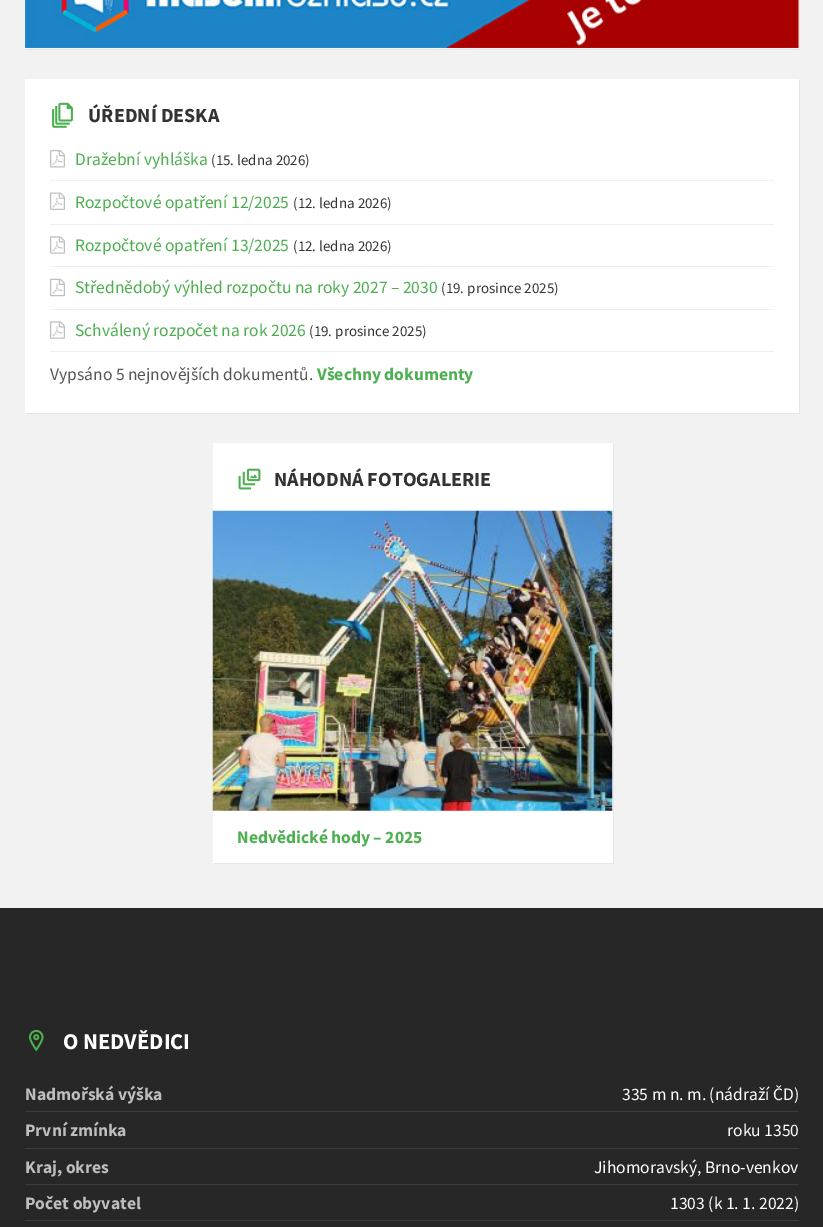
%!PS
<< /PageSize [823 1227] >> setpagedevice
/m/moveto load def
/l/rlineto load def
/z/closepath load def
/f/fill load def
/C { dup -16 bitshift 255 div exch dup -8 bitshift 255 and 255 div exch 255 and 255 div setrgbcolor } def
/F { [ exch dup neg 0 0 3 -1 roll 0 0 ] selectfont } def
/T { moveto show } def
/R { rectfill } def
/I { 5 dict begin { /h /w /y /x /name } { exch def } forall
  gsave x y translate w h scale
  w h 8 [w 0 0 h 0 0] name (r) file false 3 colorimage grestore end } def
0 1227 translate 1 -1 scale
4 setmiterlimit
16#F2F2F2 C
0 0 823 1227 R
16#E6E6E6 C
26 49 m 0 1 l 774 0 l 0 -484 l -1 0 l 0 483 l z f
16#FFFFFF C
25 0 774 49 R
(1.rgb) 25 0 774 49 I
16#E6E6E6 C
26 412 m 0 2 l 774 0 l 0 -334 l -1 0 l 0 332 l z f
16#FFFFFF C
25 79 774 334 R
(2.rgb) 52 102 21 26 I
/SourceSansPro-Bold 20 F
16#333333 C
(ÚŘEDNÍ DESKA) 88 122 T
(3.rgb) 50 150 15 18 I
/SourceSansPro-Regular 17.5 F
16#4CAF50 C
(Dražební vyhláška) 75 165 T
/SourceSansPro-Regular 15 F
16#333333 C
(\(15. ledna 2026\)) 211 165 T
16#F0F0F0 C
50 180 724 1 R
(4.rgb) 50 192 15 18 I
/SourceSansPro-Regular 17.5 F
16#4CAF50 C
(Rozpočtové opatření 12/2025) 75 208 T
/SourceSansPro-Regular 15 F
16#333333 C
(\(12. ledna 2026\)) 293 208 T
16#F0F0F0 C
50 224 724 1 R
(5.rgb) 50 236 15 18 I
/SourceSansPro-Regular 17.5 F
16#4CAF50 C
(Rozpočtové opatření 13/2025) 75 251 T
/SourceSansPro-Regular 15 F
16#333333 C
(\(12. ledna 2026\)) 293 251 T
16#F0F0F0 C
50 266 724 1 R
(6.rgb) 50 278 15 19 I
/SourceSansPro-Regular 17.5 F
16#4CAF50 C
(Střednědobý výhled rozpočtu na roky 2027 – 2030) 75 293 T
/SourceSansPro-Regular 15 F
16#333333 C
(\(19. prosince 2025\)) 441 293 T
16#F0F0F0 C
50 309 724 1 R
(5.rgb) 50 321 15 18 I
/SourceSansPro-Regular 17.5 F
16#4CAF50 C
(Schválený rozpočet na rok 2026) 75 336 T
/SourceSansPro-Regular 15 F
16#333333 C
(\(19. prosince 2025\)) 309 336 T
16#F0F0F0 C
50 351 724 1 R
/SourceSansPro-Regular 17.5 F
16#565656 C
(Vypsáno 5 nejnovějších dokumentů.) 50 380 T
/SourceSansPro-Bold 17.5 F
16#4CAF50 C
(Všechny dokumenty) 317 380 T
16#E6E6E6 C
214 862 m 0 2 l 400 0 l 0 -420 l -2 0 l 0 418 l z f
16#FFFFFF C
213 443 400 420 R
(7.rgb) 238 468 23 22 I
/SourceSansPro-Bold 20 F
16#333333 C
(NÁHODNÁ FOTOGALERIE) 274 486 T
(8.rgb) 212 510 401 301 I
/SourceSansPro-Bold 17.5 F
16#4CAF50 C
(Nedvědické hody – 2025) 237 843 T
16#272727 C
0 908 823 319 R
(9.rgb) 29 1029 15 23 I
/SourceSansPro-Bold 22.5 F
16#FFFFFF C
(O NEDVĚDICI) 63 1049 T
/SourceSansPro-Bold 17.5 F
16#BEBEBE C
(Nadmořská výška) 25 1100 T
/SourceSansPro-Regular 17.5 F
16#FFFFFF C
(335 m n. m. \(nádraží ČD\)) 622 1100 T
16#3D3D3D C
25 1111 774 1 R
/SourceSansPro-Bold 17.5 F
16#BEBEBE C
(První zmínka) 25 1136 T
/SourceSansPro-Regular 17.5 F
16#FFFFFF C
(roku 1350) 727 1136 T
16#3D3D3D C
25 1148 774 1 R
/SourceSansPro-Bold 17.5 F
16#BEBEBE C
(Kraj, okres) 25 1173 T
/SourceSansPro-Regular 17.5 F
16#FFFFFF C
(Jihomoravský, Brno-venkov) 594 1173 T
16#3D3D3D C
25 1184 774 1 R
/SourceSansPro-Bold 17.5 F
16#BEBEBE C
(Počet obyvatel) 25 1209 T
/SourceSansPro-Regular 17.5 F
16#FFFFFF C
(1303 \(k 1. 1. 2022\)) 670 1209 T
16#3D3D3D C
25 1220 774 1 R
showpage
